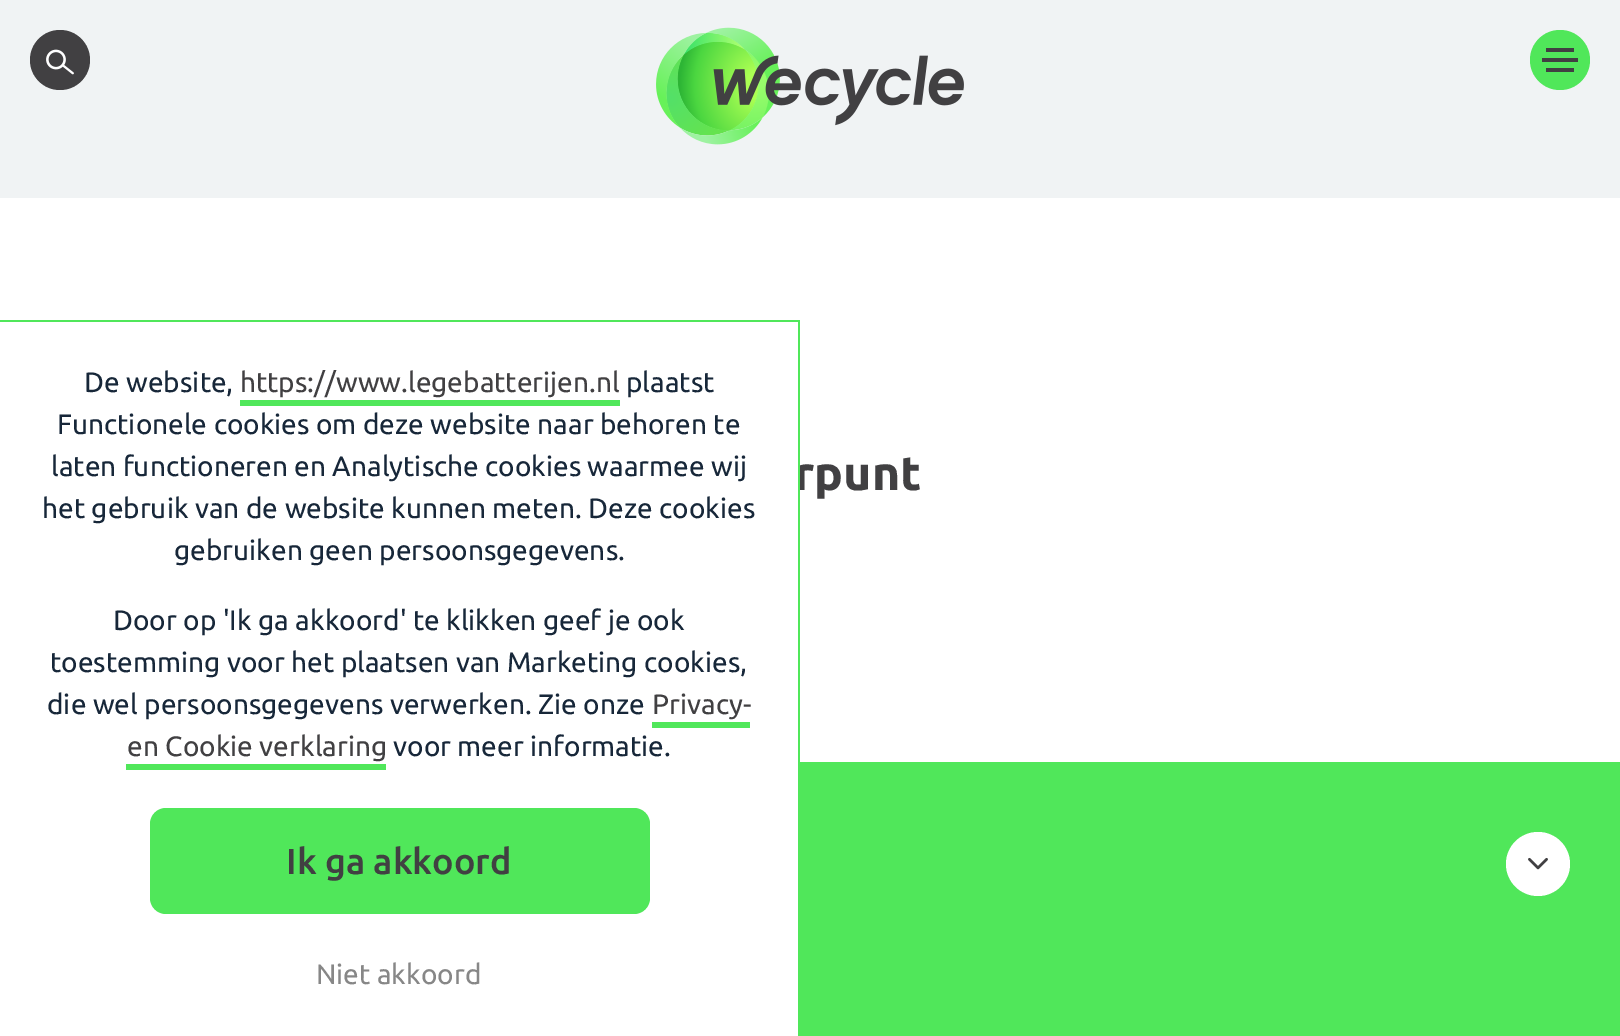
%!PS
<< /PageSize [1620 1036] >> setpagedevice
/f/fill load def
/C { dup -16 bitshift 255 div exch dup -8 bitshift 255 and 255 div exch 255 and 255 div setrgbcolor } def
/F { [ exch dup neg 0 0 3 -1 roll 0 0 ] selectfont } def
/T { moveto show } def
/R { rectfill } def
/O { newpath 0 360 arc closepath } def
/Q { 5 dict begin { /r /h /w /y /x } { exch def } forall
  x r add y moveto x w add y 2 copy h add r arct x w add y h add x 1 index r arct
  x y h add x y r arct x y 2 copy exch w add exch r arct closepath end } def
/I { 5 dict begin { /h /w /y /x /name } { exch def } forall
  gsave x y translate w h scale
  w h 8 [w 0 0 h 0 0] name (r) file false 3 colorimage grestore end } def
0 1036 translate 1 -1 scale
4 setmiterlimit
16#FFFFFF C
0 0 1620 1036 R
/Ubuntu-Bold 48 F
16#414042 C
(rpunt) 794 490 T
16#FFFFFF C
797 465 1 25 R
16#50E75A C
0 320 800 2 R
798 320 2 716 R
/Ubuntu-Regular 28 F
16#172739 C
(De website,) 84 392 T
16#414042 C
(https://www.legebatterijen.nl) 240 392 T
16#50E75A C
240 400 380 6 R
16#172739 C
(plaatst) 626 392 T
(Functionele cookies om deze website naar behoren te) 57 434 T
(laten functioneren en Analytische cookies waarmee wij) 51 476 T
(het gebruik van de website kunnen meten. Deze cookies) 42 518 T
(gebruiken geen persoonsgegevens.) 174 560 T
(Door op 'Ik ga akkoord' te klikken geef je ook) 113 630 T
(toestemming voor het plaatsen van Marketing cookies,) 50 672 T
(die wel persoonsgegevens verwerken. Zie onze) 47 714 T
16#414042 C
(Privacy-) 652 714 T
16#50E75A C
652 722 98 6 R
16#414042 C
(en Cookie verklaring) 127 756 T
16#50E75A C
126 764 260 6 R
16#172739 C
(voor meer informatie.) 393 756 T
16#50E75A C
150 808 500 106 16 Q f
/Ubuntu-Medium 36 F
16#414042 C
(Ik ga akkoord) 286 874 T
/Ubuntu-Regular 28 F
16#878787 C
(Niet akkoord) 316 984 T
16#F0F3F4 C
0 0 1620 198 R
(1.rgb) 656 27 308 118 I
16#50E75A C
1560 60 30 O f
16#414042 C
1546 48 28 4 R
1542 58 36 4 R
1546 68 28 4 R
60 60 30 O f
(2.rgb) 46 49 28 26 I
16#50E75A C
800 762 820 274 R
16#FFFFFF C
1538 864 32 O f
(3.rgb) 1528 857 20 13 I
showpage
